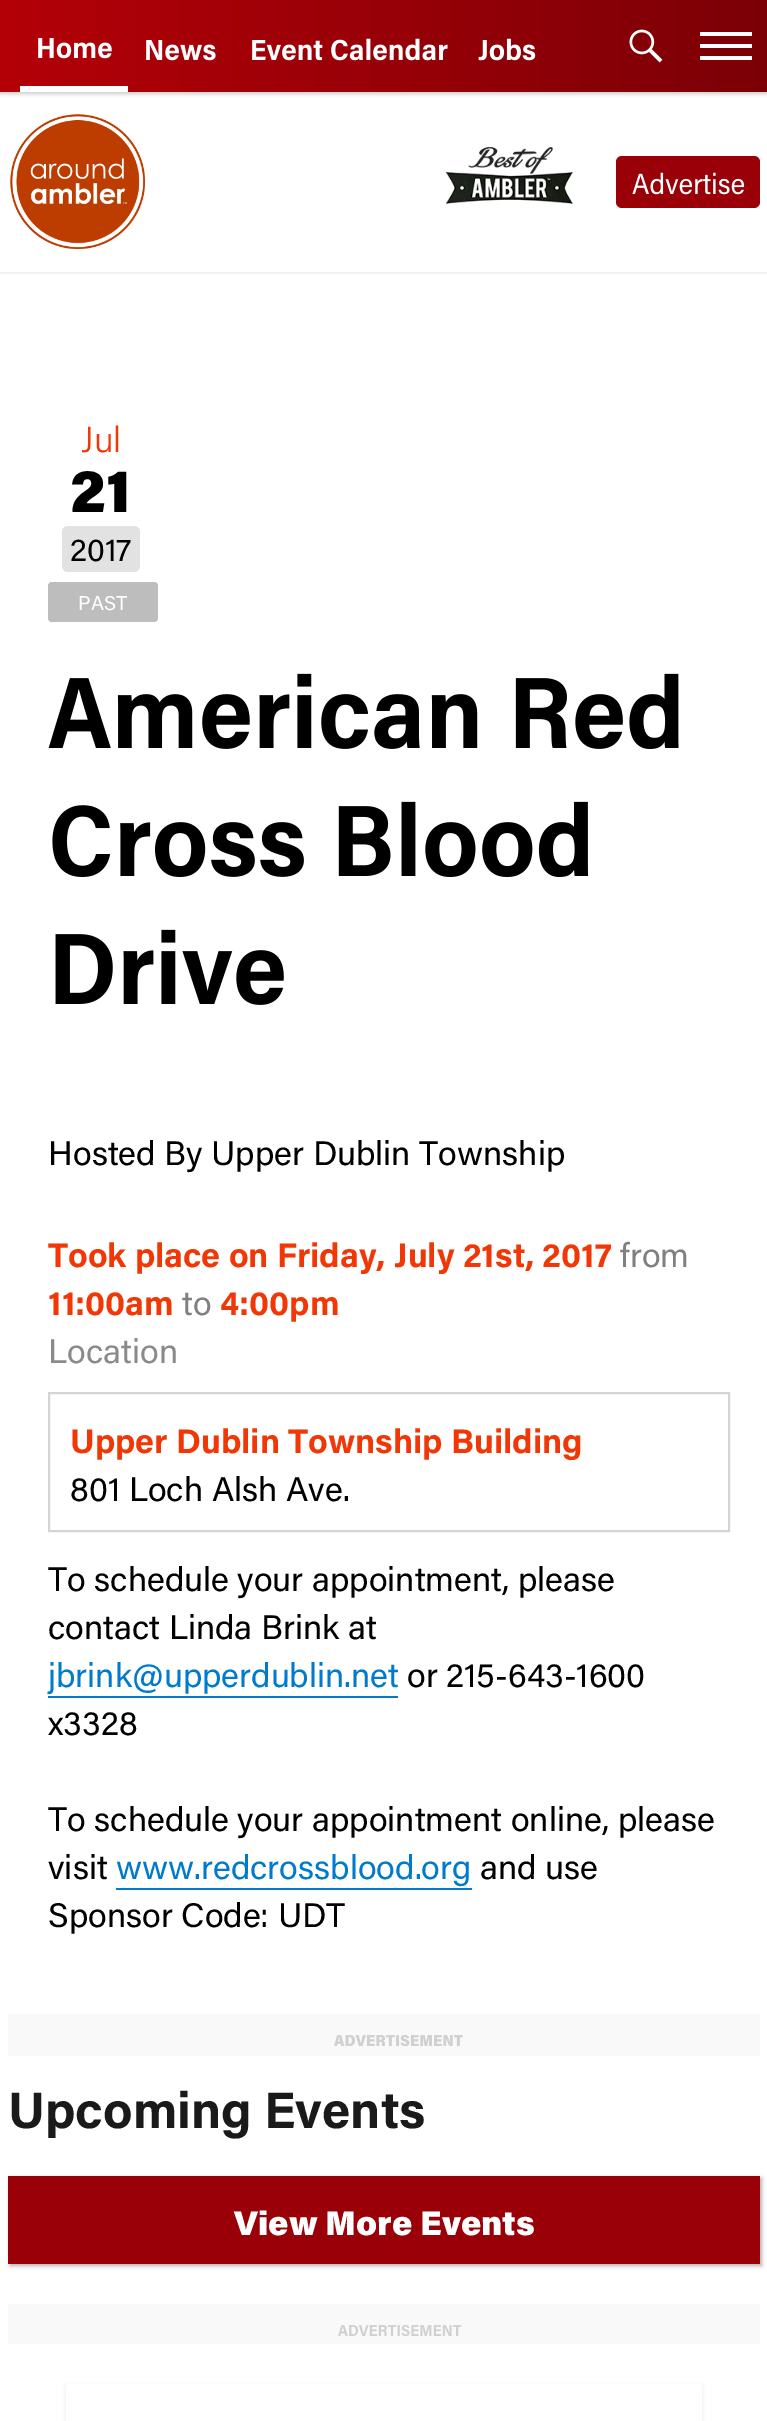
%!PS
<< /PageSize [767 2421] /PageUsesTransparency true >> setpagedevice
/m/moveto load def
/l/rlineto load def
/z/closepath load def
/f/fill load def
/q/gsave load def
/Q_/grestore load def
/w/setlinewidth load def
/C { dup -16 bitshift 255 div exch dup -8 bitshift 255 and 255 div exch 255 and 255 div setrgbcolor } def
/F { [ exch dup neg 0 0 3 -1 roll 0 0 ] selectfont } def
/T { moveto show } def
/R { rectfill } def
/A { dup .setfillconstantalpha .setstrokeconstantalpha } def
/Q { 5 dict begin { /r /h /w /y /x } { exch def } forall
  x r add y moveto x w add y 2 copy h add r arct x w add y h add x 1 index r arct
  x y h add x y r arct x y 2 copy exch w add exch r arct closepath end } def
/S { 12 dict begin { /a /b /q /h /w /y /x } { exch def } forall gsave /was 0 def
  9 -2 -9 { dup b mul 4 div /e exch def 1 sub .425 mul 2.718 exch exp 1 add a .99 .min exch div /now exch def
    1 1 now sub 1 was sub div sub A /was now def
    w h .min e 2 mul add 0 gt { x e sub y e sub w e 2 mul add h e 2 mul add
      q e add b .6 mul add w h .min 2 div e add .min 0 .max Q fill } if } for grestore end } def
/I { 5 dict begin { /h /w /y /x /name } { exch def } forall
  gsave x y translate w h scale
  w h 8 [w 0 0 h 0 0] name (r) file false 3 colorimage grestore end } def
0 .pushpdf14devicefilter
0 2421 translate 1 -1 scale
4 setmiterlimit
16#FFFFFF C
0 0 767 2421 R
16#000000 C
0 2 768 92 0 2 .2 S
q 0 0 m 767 0 l 0 92 l -767 0 l z clip newpath
<< /ShadingType 2 /ColorSpace /DeviceRGB /Coords [0 46 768 46] /Extend [true true] /Function << /FunctionType 2 /Domain [0 1] /C0 [.706 0 .031] /C1 [.482 0 .024] /N 1 >> >> shfill Q_
(1.rgb) 38 38 74 21 I
16#FFFFFF C
20 86 108 6 R
(2.rgb) 146 40 70 21 I
(3.rgb) 252 38 196 23 I
(4.rgb) 478 38 58 23 I
(5.rgb) 629 29 34 34 I
700 32 52 4 R
700 44 52 4 R
700 56 52 4 R
16#F1F1F1 C
0 272 767 2 R
(6.rgb) 10 114 135 135 I
(7.rgb) 445 147 128 57 I
16#9A0007 C
616 156 144 52 6 Q f
(8.rgb) 632 172 113 23 I
/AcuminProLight-Light 36 F
16#F03705 C
(Jul) 81 452 T
/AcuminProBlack-Black 61 F
16#000000 C
(21) 70 512 T
16#E2E2E2 C
62 526 78 46 6 Q f
/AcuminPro-Regular 32 F
16#000000 C
(2017) 70 561 T
16#BDBDBD C
48 582 110 40 4 Q f
/AcuminPro-Regular 20 F
16#FFFFFF C
(PAST) 78 610 T
(9.rgb) 48 673 631 76 I
(10.rgb) 52 801 537 76 I
(11.rgb) 55 929 229 76 I
/AcuminPro-Regular 34 F
16#000000 C
(Hosted By Upper Dublin Township) 48 1165 T
/AcuminPro-Bold 34 F
16#F03705 C
(Took place on Friday, July 21st, 2017) 48 1267 T
/AcuminPro-Regular 34 F
16#808080 C
(from) 620 1267 T
/AcuminPro-Bold 34 F
16#F03705 C
(11:00am) 48 1315 T
/AcuminPro-Regular 34 F
16#808080 C
(to) 182 1315 T
/AcuminPro-Bold 34 F
16#F03705 C
(4:00pm) 220 1315 T
/AcuminPro-Regular 34 F
16#8A8A8A C
(Location) 48 1363 T
16#D4D4D4 C
2 w
49 1393 680 138 rectstroke
/AcuminPro-Bold 34 F
16#F03705 C
(Upper Dublin Township Building) 70 1453 T
/AcuminPro-Regular 34 F
16#000000 C
(801 Loch Alsh Ave.) 70 1501 T
(To schedule your appointment, please) 48 1591 T
(contact Linda Brink at) 48 1639 T
16#007ACC C
(jbrink@upperdublin.net) 48 1687 T
48 1696 350 2 R
16#000000 C
(or 215-643-1600) 407 1687 T
(x3328) 48 1735 T
(To schedule your appointment online, please) 48 1831 T
(visit) 48 1879 T
16#007ACC C
(www.redcrossblood.org) 116 1879 T
116 1888 356 2 R
16#000000 C
(and use) 480 1879 T
(Sponsor Code: UDT) 48 1927 T
16#F9F9F9 C
8 2014 752 42 R
(12.rgb) 334 2034 129 13 I
/AcuminPro-Bold 51 F
16#1A1A1A C
(Upcoming Events) 8 2128 T
16#000000 C
10 2178 752 88 0 2 .3 S
16#9A0007 C
8 2176 752 88 R
/AcuminProBlack-Black 34 F
16#FFFFFF C
(View More Events) 234 2235 T
16#F9F9F9 C
8 2304 752 40 R
(13.rgb) 338 2325 124 12 I
q
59 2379 m 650 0 l 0 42 l -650 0 l z 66 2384 m 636 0 l 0 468 l -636 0 l z eoclip newpath
16#000000 C
66 2386 636 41 0 2 .1 S
Q_
.poppdf14devicefilter showpage
